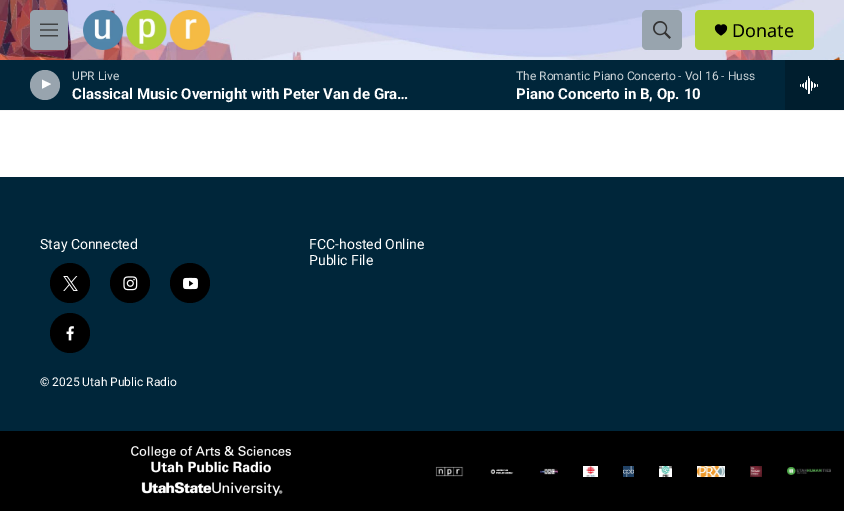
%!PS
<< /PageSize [844 511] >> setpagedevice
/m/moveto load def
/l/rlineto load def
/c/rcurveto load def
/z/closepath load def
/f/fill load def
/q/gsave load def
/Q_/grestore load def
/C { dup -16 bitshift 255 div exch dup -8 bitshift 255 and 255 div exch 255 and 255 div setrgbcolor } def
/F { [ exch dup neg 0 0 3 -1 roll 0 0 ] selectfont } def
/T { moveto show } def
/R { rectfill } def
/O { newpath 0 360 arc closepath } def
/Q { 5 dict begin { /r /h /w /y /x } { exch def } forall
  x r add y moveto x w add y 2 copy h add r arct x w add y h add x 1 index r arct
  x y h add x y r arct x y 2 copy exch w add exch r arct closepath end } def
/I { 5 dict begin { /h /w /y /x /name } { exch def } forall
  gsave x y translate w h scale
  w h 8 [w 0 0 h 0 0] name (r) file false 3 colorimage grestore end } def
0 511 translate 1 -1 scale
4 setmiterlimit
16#FFFFFF C
0 0 844 511 R
16#F5F5F5 C
0 110 844 1 R
(1.rgb) 0 0 844 60 I
16#98A4AE C
30 10 38 40 5 Q f
(2.rgb) 40 23 18 14 I
(3.rgb) 83 10 127 40 I
642 10 40 40 5 Q f
(4.rgb) 653 21 18 18 I
16#AED136 C
695 10 119 40 5 Q f
16#000000 C
721 26 m -2 -5 -12.5 2 0 9.5 c 12.5 -7.5 2 -14.5 0 -9.5 c z f
/NotoSans-Regular 18 F
(Donate) 732 37 T
16#00263A C
0 60 785 50 R
16#98A4AE C
45 85 15 O f
q
42 78 12 15 rectclip
16#FFFFFF C
41.5 79.5 m 9.5 4.5 l -9.5 5 l z f
Q_
/Roboto-Regular 12 F
16#CCD4D8 C
(UPR Live) 72 80 T
/Roboto-Bold 15 F
16#FFFFFF C
(Classical Music Overnight with Peter Van de Gra…) 72 99 T
/Roboto-Regular 12 F
16#CCD4D8 C
(The Romantic Piano Concerto - Vol 16 - Huss) 516 80 T
/Roboto-Bold 15 F
16#FFFFFF C
(Piano Concerto in B, Op. 10) 516 99 T
16#001E2E C
785 60 59 50 R
(5.rgb) 800 76 18 18 I
16#00263A C
0 177 844 254 R
/Roboto-Regular 14 F
16#FFFFFF C
(Stay Connected) 40 249 T
16#000000 C
70 283 20 O f
(6.rgb) 63 276 15 15 I
130 283 20 O f
(7.rgb) 123 276 15 15 I
190 283 20 O f
(8.rgb) 183 277 15 13 I
70 333 20 O f
(9.rgb) 66 326 8 15 I
/Roboto-Regular 12 F
16#FFFFFF C
(© 2025 Utah Public Radio) 40 386 T
/Roboto-Regular 14 F
(FCC-hosted Online) 309 249 T
(Public File) 309 265 T
16#000000 C
0 431 844 80 R
(10.rgb) 131 446 160 50 I
(11.rgb) 435 466 29 11 I
(12.rgb) 490 469 24 6 I
(13.rgb) 540 468 18 7 I
(14.rgb) 583 466 15 11 I
(15.rgb) 623 466 11 11 I
(16.rgb) 659 466 13 11 I
(17.rgb) 697 466 28 11 I
(18.rgb) 750 466 12 11 I
(19.rgb) 787 467 44 8 I
showpage
